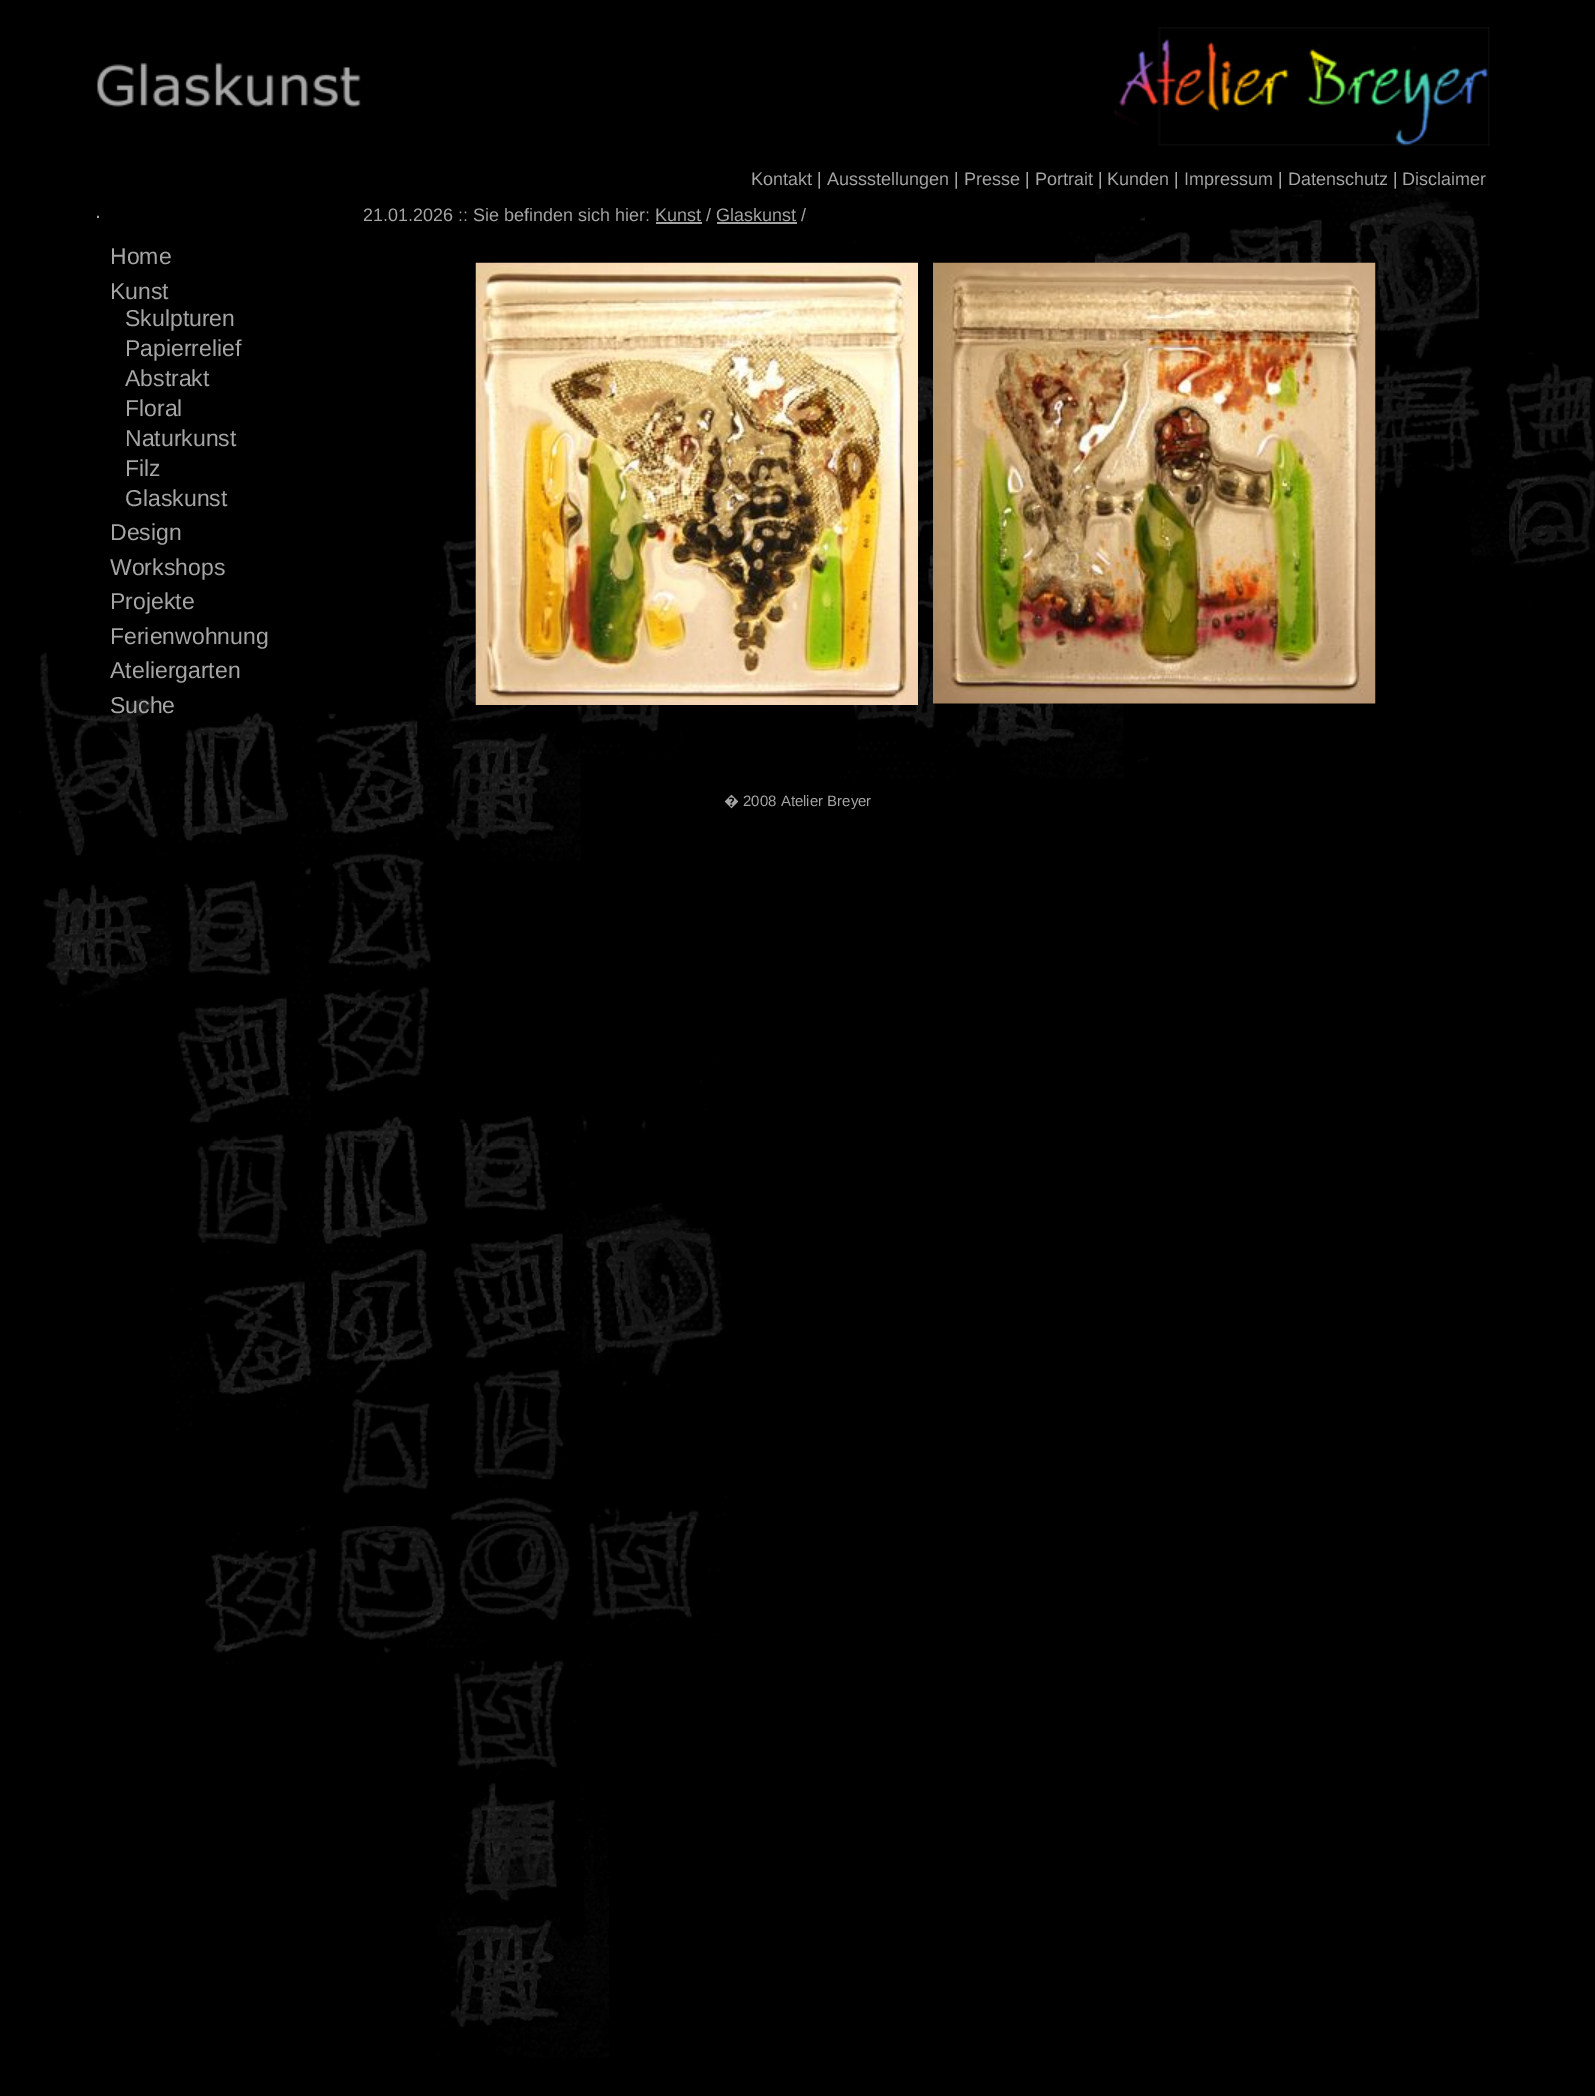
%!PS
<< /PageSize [1595 2096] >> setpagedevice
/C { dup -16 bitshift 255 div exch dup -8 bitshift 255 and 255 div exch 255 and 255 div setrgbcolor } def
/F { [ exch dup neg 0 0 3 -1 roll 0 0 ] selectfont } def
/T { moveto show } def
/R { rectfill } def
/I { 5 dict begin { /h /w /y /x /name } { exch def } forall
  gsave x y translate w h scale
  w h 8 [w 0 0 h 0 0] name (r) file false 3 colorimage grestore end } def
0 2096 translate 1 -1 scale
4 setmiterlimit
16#000000 C
0 0 1595 2096 R
(1.rgb) 19 186 1576 1872 I
(2.rgb) 96 27 1394 119 I
/LiberationSans-Regular 18 F
16#A5A5A5 C
(Kontakt) 751 185 T
(|) 817 185 T
(Aussstellungen) 827 185 T
(|) 954 185 T
(Presse) 964 185 T
(|) 1025 185 T
(Portrait) 1035 185 T
(|) 1098 185 T
(Kunden) 1107 185 T
(|) 1174 185 T
(Impressum) 1184 185 T
(|) 1278 185 T
(Datenschutz) 1288 185 T
(|) 1393 185 T
(Disclaimer) 1402 185 T
/LiberationSans-Regular 21 F
(.) 95 218 T
/LiberationSans-Regular 23 F
(Home) 110 264 T
(Kunst) 110 299 T
(Skulpturen) 125 326 T
(Papierrelief) 125 356 T
(Abstrakt) 125 386 T
(Floral) 125 416 T
(Naturkunst) 125 446 T
(Filz) 125 476 T
(Glaskunst) 125 506 T
(Design) 110 540 T
(Workshops) 110 575 T
(Projekte) 110 609 T
(Ferienwohnung) 110 644 T
(Ateliergarten) 110 678 T
(Suche) 110 713 T
/LiberationSans-Regular 18 F
(21.01.2026 :: Sie befinden sich hier:) 363 221 T
(Kunst) 655 221 T
656 222 46 2 R
(/) 706 221 T
(Glaskunst) 716 221 T
717 222 80 2 R
(/) 801 221 T
(3.rgb) 475 262 443 443 I
(4.rgb) 933 262 443 442 I
/NotoSans-Regular 15 F
(�) 724 806 T
/LiberationSans-Regular 15 F
(2008 Atelier Breyer) 743 806 T
showpage
